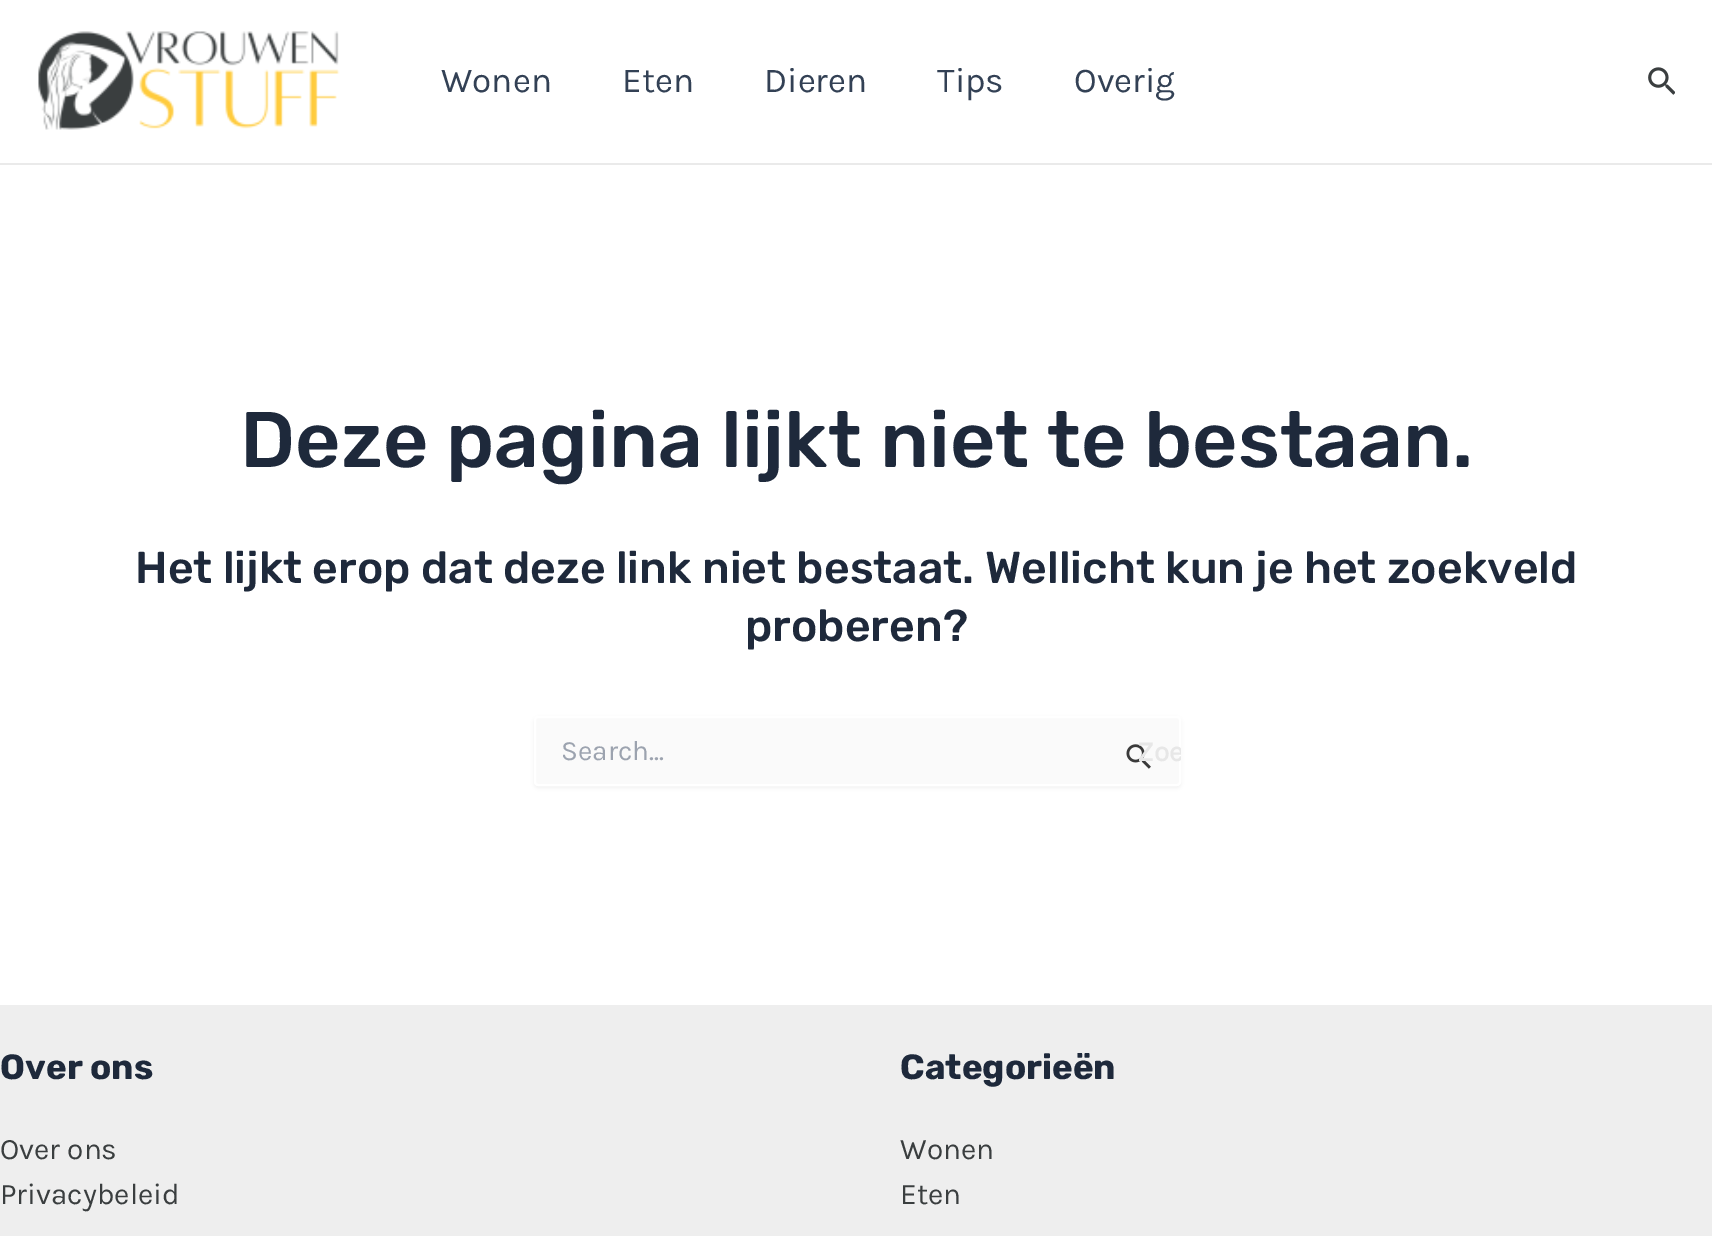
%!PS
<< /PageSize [1712 1236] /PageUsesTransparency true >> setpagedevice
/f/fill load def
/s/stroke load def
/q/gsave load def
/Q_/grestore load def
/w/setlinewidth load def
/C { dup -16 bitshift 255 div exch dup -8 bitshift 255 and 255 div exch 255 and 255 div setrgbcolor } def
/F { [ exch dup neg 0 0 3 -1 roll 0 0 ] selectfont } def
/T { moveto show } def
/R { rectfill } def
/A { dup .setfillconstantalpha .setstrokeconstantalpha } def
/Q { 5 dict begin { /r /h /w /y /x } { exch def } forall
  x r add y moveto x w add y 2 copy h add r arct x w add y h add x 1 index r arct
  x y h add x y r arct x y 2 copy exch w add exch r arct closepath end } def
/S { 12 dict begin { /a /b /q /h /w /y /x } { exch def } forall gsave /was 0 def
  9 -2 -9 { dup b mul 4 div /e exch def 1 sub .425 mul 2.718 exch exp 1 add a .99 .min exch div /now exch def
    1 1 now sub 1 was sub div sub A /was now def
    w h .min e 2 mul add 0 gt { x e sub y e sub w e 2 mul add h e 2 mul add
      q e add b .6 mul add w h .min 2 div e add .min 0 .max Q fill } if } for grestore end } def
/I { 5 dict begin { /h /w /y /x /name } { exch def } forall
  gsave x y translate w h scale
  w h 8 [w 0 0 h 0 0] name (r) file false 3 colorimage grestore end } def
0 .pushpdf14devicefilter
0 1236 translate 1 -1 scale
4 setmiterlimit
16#FFFFFF C
0 0 1712 1236 R
16#EAEAEA C
0 163 1712 2 R
(1.rgb) 38 31 302 99 I
/Karla-Regular 35 F
16#334155 C
(Wonen) 441 92 T
(Eten) 622 92 T
(Dieren) 764 92 T
(Tips) 937 92 T
(Overig) 1074 92 T
(2.rgb) 1648 67 27 28 I
/Rubik-Medium 78.75 F
16#1E293B C
(Deze pagina lijkt niet te bestaan.) 240 467 T
/Rubik-Medium 44.6 F
(Het lijkt erop dat deze link niet bestaat. Wellicht kun je het zoekveld) 135 583 T
(proberen?) 745 641 T
16#000000 C
534 718 647 70 4 2 .05 S
16#FAFAFA C
535 717 645 68 3 Q q f Q_
16#FFFFFF C
2 w
s
/Karla-Regular 28 F
16#9CA3AF C
(Search...) 561 760 T
(3.rgb) 1126 744 25 25 I
q
1103 716 78 73 4 Q clip newpath
/Karla-Bold 28 F
16#E7E7E7 C
(Zoe) 1137 761 T
Q_
16#EEEEEE C
0 1005 1712 231 R
/Rubik-Bold 35 F
16#1E293B C
(Over ons) 0 1079 T
/Karla-Regular 29.75 F
16#3A3E3F C
(Over ons) 0 1159 T
(Privacybeleid) 0 1204 T
/Rubik-Bold 35 F
16#1E293B C
(Categorieën) 900 1079 T
/Karla-Regular 29.75 F
16#3A3E3F C
(Wonen) 900 1159 T
(Eten) 900 1204 T
.poppdf14devicefilter showpage
